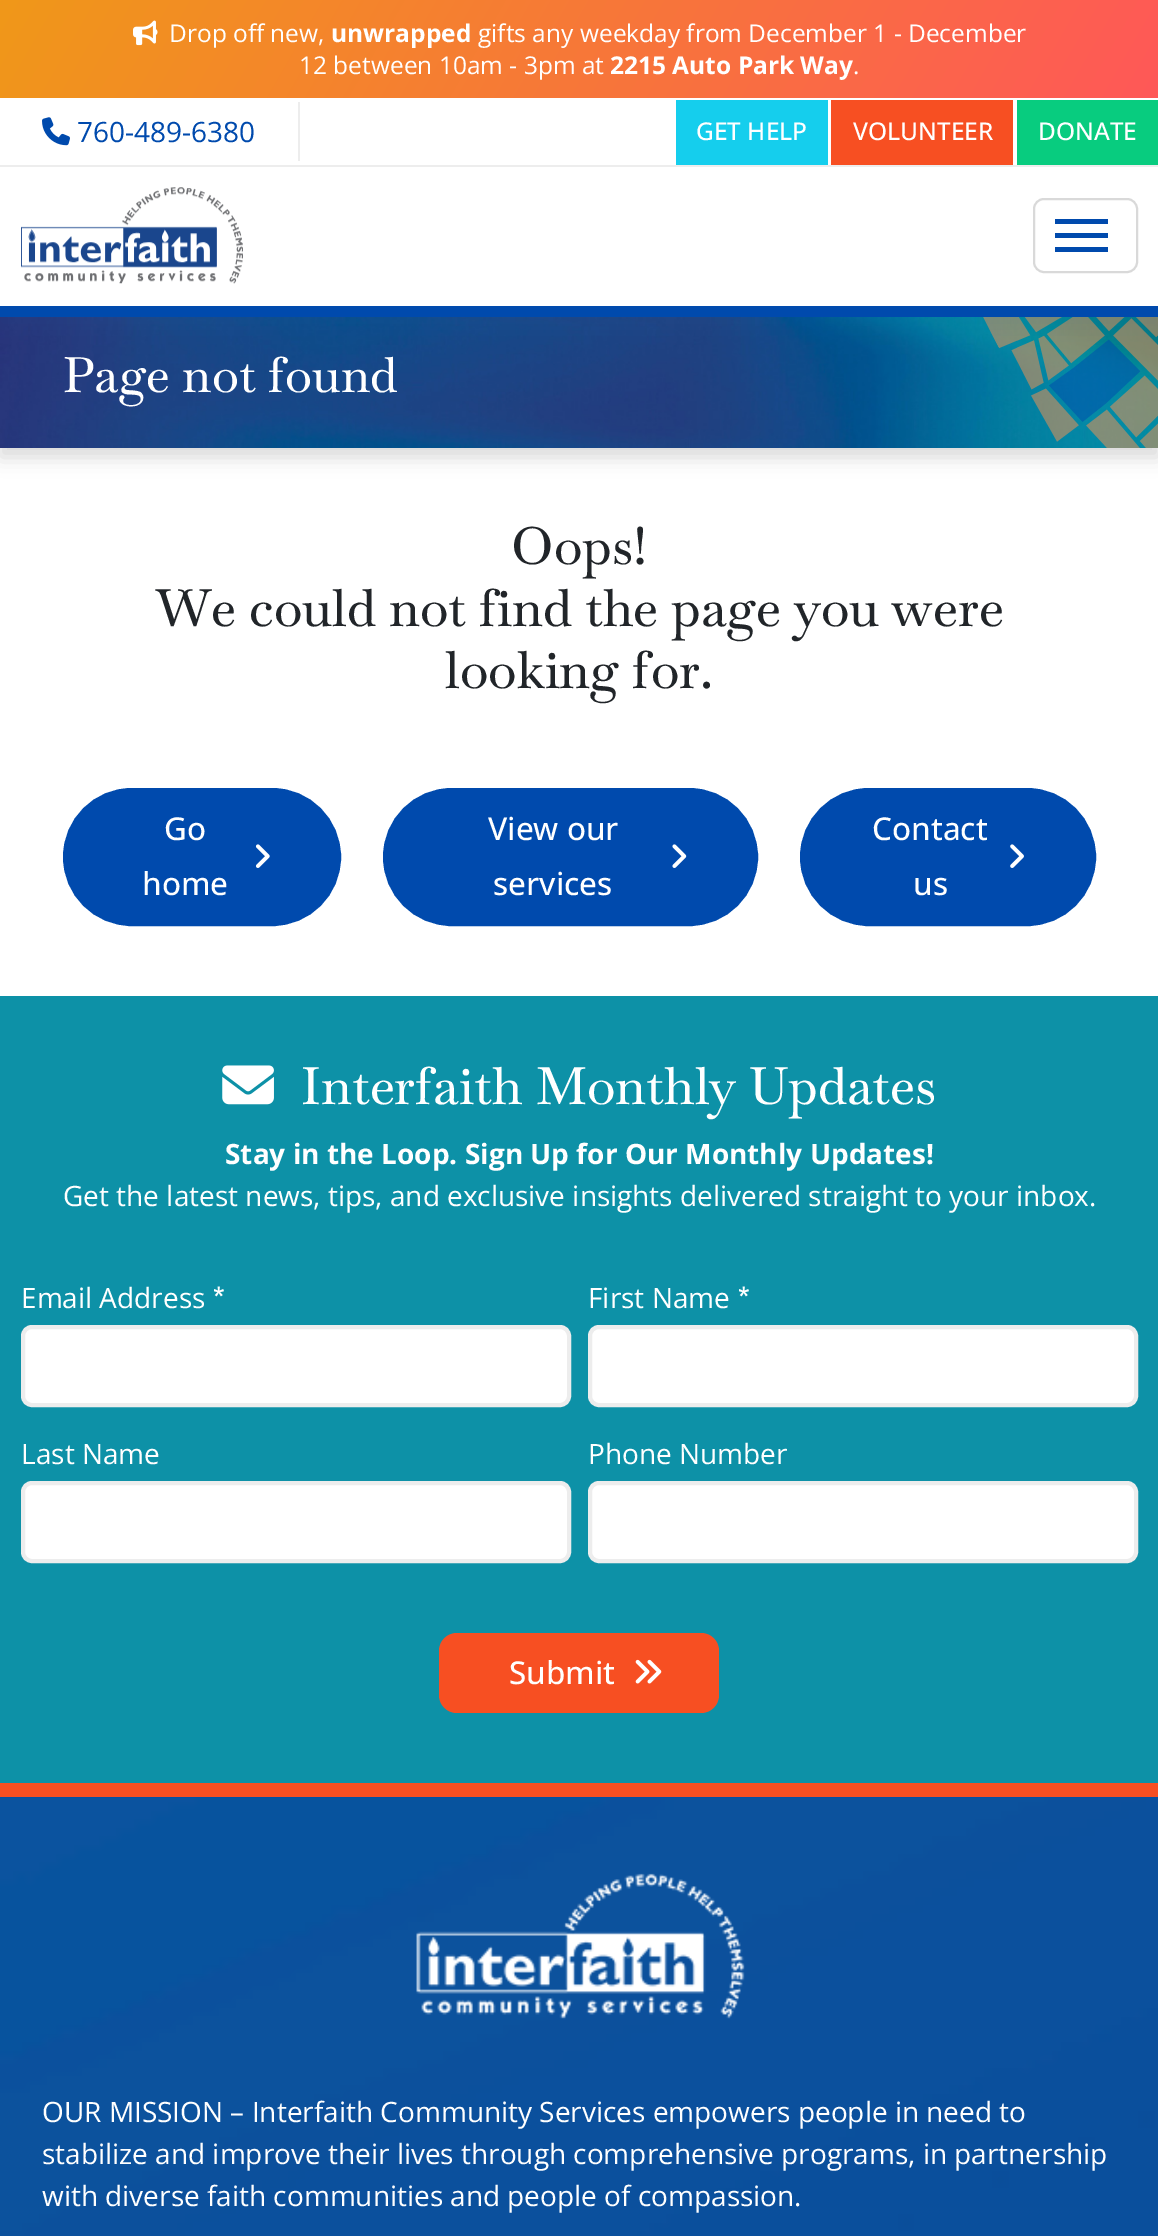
%!PS
<< /PageSize [1158 2236] /PageUsesTransparency true >> setpagedevice
/m/moveto load def
/l/rlineto load def
/z/closepath load def
/f/fill load def
/s/stroke load def
/q/gsave load def
/Q_/grestore load def
/w/setlinewidth load def
/C { dup -16 bitshift 255 div exch dup -8 bitshift 255 and 255 div exch 255 and 255 div setrgbcolor } def
/F { [ exch dup neg 0 0 3 -1 roll 0 0 ] selectfont } def
/T { moveto show } def
/R { rectfill } def
/A { dup .setfillconstantalpha .setstrokeconstantalpha } def
/Q { 5 dict begin { /r /h /w /y /x } { exch def } forall
  x r add y moveto x w add y 2 copy h add r arct x w add y h add x 1 index r arct
  x y h add x y r arct x y 2 copy exch w add exch r arct closepath end } def
/S { 12 dict begin { /a /b /q /h /w /y /x } { exch def } forall gsave /was 0 def
  9 -2 -9 { dup b mul 4 div /e exch def 1 sub .425 mul 2.718 exch exp 1 add a .99 .min exch div /now exch def
    1 1 now sub 1 was sub div sub A /was now def
    w h .min e 2 mul add 0 gt { x e sub y e sub w e 2 mul add h e 2 mul add
      q e add b .6 mul add w h .min 2 div e add .min 0 .max Q fill } if } for grestore end } def
/I { 5 dict begin { /h /w /y /x /name } { exch def } forall
  gsave x y translate w h scale
  w h 8 [w 0 0 h 0 0] name (r) file false 3 colorimage grestore end } def
0 .pushpdf14devicefilter
0 2236 translate 1 -1 scale
4 setmiterlimit
16#FFFFFF C
0 0 1158 2236 R
16#000000 C
0 326 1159 131 0 9.5 .15 S
(4.rgb) 0 317 1158 131 I
(5.rgb) 983 317 175 131 I
16#0C69B8 C
-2 7 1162 320 0 12 .1 S
16#FFFFFF C
0 98 1158 208 R
16#004AAD C
0 306 1158 11 R
q 0 0 m 1158 0 l 0 98 l -1158 0 l z clip newpath
<< /ShadingType 2 /ColorSpace /DeviceRGB /Coords [1035 312 124 -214] /Extend [true true] /Function << /FunctionType 2 /Domain [0 1] /C0 [1 .345 .345] /C1 [.941 .596 .098] /N 1 >> >> shfill Q_
(1.rgb) 133 20 25 26 I
/OpenSans-Regular 24.5 F
16#FFFFFF C
(Drop off new,) 169 42 T
/OpenSans-Bold 24.5 F
(unwrapped) 331 42 T
/OpenSans-Regular 24.5 F
(gifts any weekday from December 1 - December) 478 42 T
(12 between 10am - 3pm at) 299 74 T
/OpenSans-Bold 24.5 F
(2215 Auto Park Way) 610 74 T
/OpenSans-Regular 24.5 F
(.) 853 74 T
16#EDEDED C
0 165 1158 2 R
298 102 2 59 R
(2.rgb) 42 117 28 29 I
/OpenSans-Regular 28 F
16#004AAD C
(760-489-6380) 77 142 T
16#15CEED C
676 100 152 65 R
/OpenSans-Medium 24.5 F
16#FFFFFF C
(GET HELP) 696 140 T
16#F74F22 C
831 100 182 65 R
16#FFFFFF C
(VOLUNTEER) 853 140 T
16#08CC7F C
1017 100 141 65 R
16#FFFFFF C
(DONATE) 1038 140 T
(3.rgb) 21 187 222 97 I
16#D9D9D9 C
2 w
1034 199 103 73 10 Q s
16#004AAD C
1055 219 53 5 R
1055 233 53 5 R
1055 247 53 5 R
/Baskervville-Medium 49 F
16#FFFFFF C
(Page not found) 63 392 T
/Baskervville-Medium 51.75 F
16#212529 C
(Oops!) 511 564 T
(We could not find the page you were) 156 626 T
(looking for.) 445 688 T
16#004AAD C
64 789 276 136 68 Q q f Q_
s
/OpenSans-Medium 31.5 F
16#FFFFFF C
(Go) 164 840 T
(6.rgb) 255 844 15 24 I
(home) 142 895 T
16#004AAD C
384 789 373 136 68 Q q f Q_
s
16#FFFFFF C
(View our) 488 840 T
(7.rgb) 672 844 15 24 I
(services) 493 895 T
16#004AAD C
801 789 294 136 68 Q q f Q_
s
16#FFFFFF C
(Contact) 872 840 T
(8.rgb) 1010 844 14 24 I
(us) 913 895 T
16#0D91A7 C
0 996 1158 787 R
16#F74F22 C
0 1783 1158 14 R
(9.rgb) 222 1065 52 40 I
/Baskervville-Medium 51.75 F
16#FFFFFF C
(Interfaith Monthly Updates) 301 1104 T
/OpenSans-Bold 28 F
(Stay in the Loop. Sign Up for Our Monthly Updates!) 225 1164 T
/OpenSans-Regular 28 F
(Get the latest news, tips, and exclusive insights delivered straight to your inbox.) 63 1206 T
(Email Address) 21 1308 T
(10.rgb) 214 1286 10 11 I
23 1327 546 78 9 Q q f Q_
16#EDEDED C
4 w
s
16#FFFFFF C
(First Name) 588 1308 T
(10.rgb) 739 1286 10 11 I
590 1327 546 78 9 Q q f Q_
16#EDEDED C
s
16#FFFFFF C
(Last Name) 21 1464 T
23 1483 546 78 9 Q q f Q_
16#EDEDED C
s
16#FFFFFF C
(Phone Number) 588 1464 T
590 1483 546 78 9 Q q f Q_
16#EDEDED C
s
16#F74F22 C
439 1633 280 80 18 Q f
/OpenSans-Medium 31.5 F
16#FFFFFF C
(Submit) 509 1684 T
(11.rgb) 635 1659 27 25 I
(12.rgb) 0 1797 1158 439 I
(13.rgb) 416 1873 329 146 I
/OpenSans-Regular 28 F
(OUR MISSION – Interfaith Community Services empowers people in need to) 42 2122 T
(stabilize and improve their lives through comprehensive programs, in partnership) 42 2164 T
(with diverse faith communities and people of compassion.) 42 2206 T
.poppdf14devicefilter showpage
